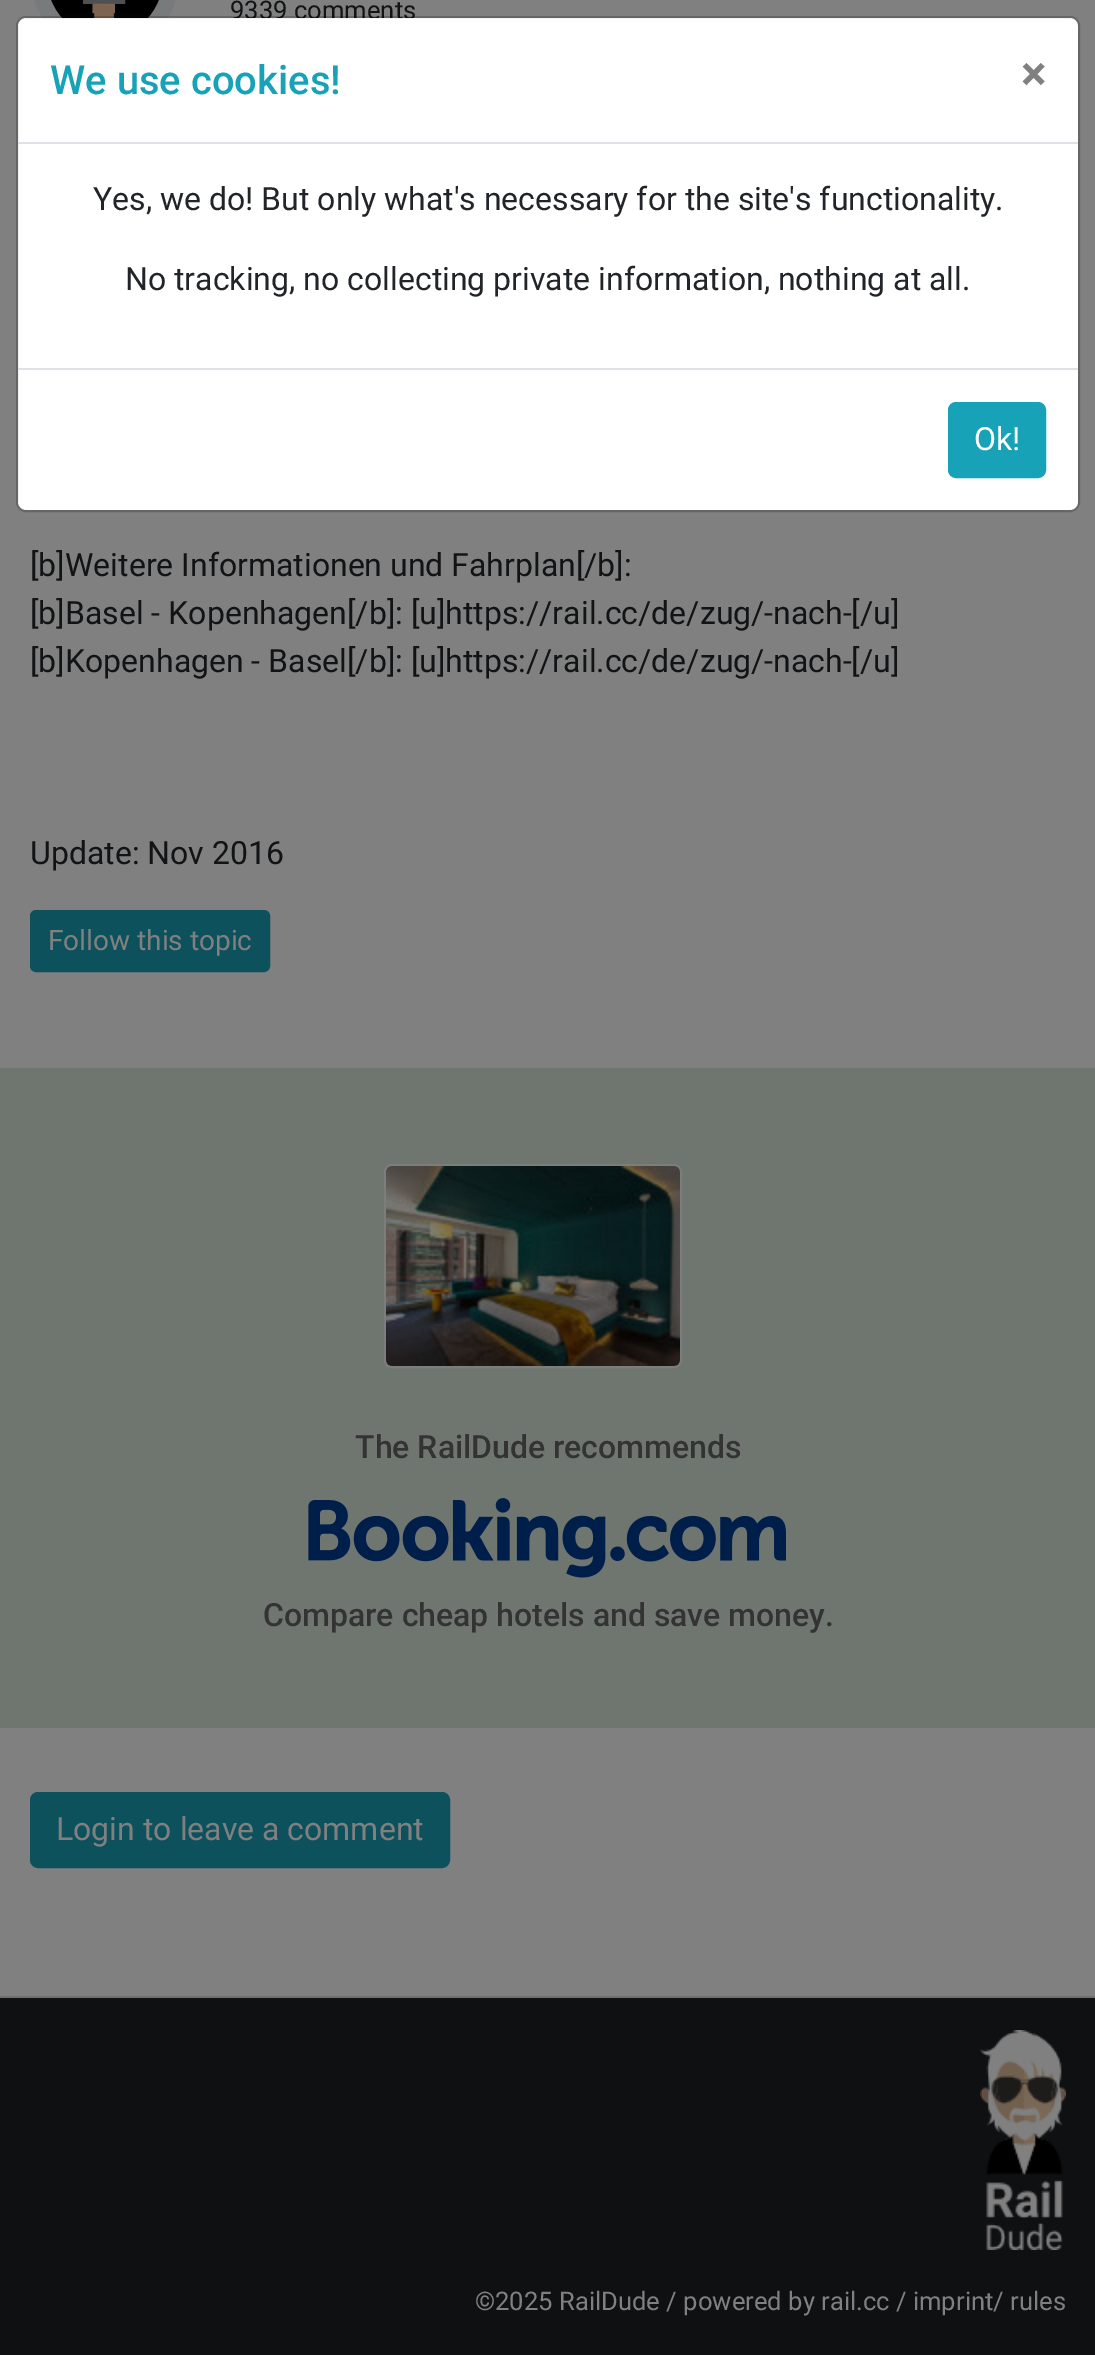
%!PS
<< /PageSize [1095 2355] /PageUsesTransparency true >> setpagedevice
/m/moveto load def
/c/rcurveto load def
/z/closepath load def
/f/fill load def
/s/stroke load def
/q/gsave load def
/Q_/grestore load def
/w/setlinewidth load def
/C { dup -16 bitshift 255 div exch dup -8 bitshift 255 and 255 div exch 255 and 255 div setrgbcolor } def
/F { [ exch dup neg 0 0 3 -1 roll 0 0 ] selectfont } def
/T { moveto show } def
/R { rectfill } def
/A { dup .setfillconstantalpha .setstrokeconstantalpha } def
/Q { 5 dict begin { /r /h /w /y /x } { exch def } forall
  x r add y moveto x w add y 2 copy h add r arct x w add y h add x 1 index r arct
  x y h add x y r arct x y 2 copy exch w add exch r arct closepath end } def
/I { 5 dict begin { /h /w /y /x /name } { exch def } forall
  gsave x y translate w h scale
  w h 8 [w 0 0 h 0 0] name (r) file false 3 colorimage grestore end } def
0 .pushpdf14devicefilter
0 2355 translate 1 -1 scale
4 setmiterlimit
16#808080 C
0 0 1095 2355 R
16#787B7B C
105 -106 m 41.5 0 75 36 75 80 c 0 44 -33.5 80 -75 80 c -41.5 0 -75 -36 -75 -80 c 0 -44 33.5 -80 75 -80 c z f
(1.rgb) 51 0 108 18 I
/Roboto-Regular 25.6 F
16#111315 C
(9339 comments) 230 19 T
/Roboto-Regular 32 F
([b]Weitere Informationen und Fahrplan[/b]:) 30 576 T
([b]Basel - Kopenhagen[/b]: [u]https://rail.cc/de/zug/-nach-[/u]) 30 624 T
([b]Kopenhagen - Basel[/b]: [u]https://rail.cc/de/zug/-nach-[/u]) 30 672 T
(Update: Nov 2016) 30 864 T
16#0C515C C
31 911 238 60 5 Q q f Q_
2 w
s
/Roboto-Regular 28 F
16#808080 C
(Follow this topic) 48 950 T
16#6F7670 C
0 1068 1095 660 R
16#7C7D7D C
385 1165 296 202 7 Q s
(2.rgb) 386 1166 294 200 I
/Roboto-Medium 32 F
16#333333 C
(The RailDude recommends) 355 1458 T
(3.rgb) 308 1498 478 80 I
(Compare cheap hotels and save money.) 263 1626 T
16#0C515C C
31 1793 418 74 7 Q q f Q_
s
/Roboto-Regular 32 F
16#808080 C
(Login to leave a comment) 56 1840 T
16#FFFFFF C
18 18 1060 492 8 Q f
0.2 A
16#000000 C
17 17 1062 494 9 Q s
1 A
16#DEE2E6 C
18 142 1060 2 R
/Roboto-Medium 40 F
16#17A2B8 C
(We use cookies!) 50 94 T
/Roboto-Bold 48 F
16#808080 C
(×) 1021 90 T
/Roboto-Regular 32 F
16#212529 C
(Yes, we do! But only what's necessary for the site's functionality.) 93 210 T
(No tracking, no collecting private information, nothing at all.) 125 290 T
16#DEE2E6 C
18 368 1060 2 R
16#17A2B8 C
949 403 96 74 7 Q q f Q_
s
16#FFFFFF C
(Ok!) 974 450 T
16#0F1012 C
0 1998 1095 357 R
16#6F6F6F C
0 1996 1095 2 R
(4.rgb) 980 2030 86 220 I
/Roboto-Regular 25.6 F
16#808080 C
(©2025 RailDude / powered by rail.cc / imprint/ rules) 475 2310 T
.poppdf14devicefilter showpage
